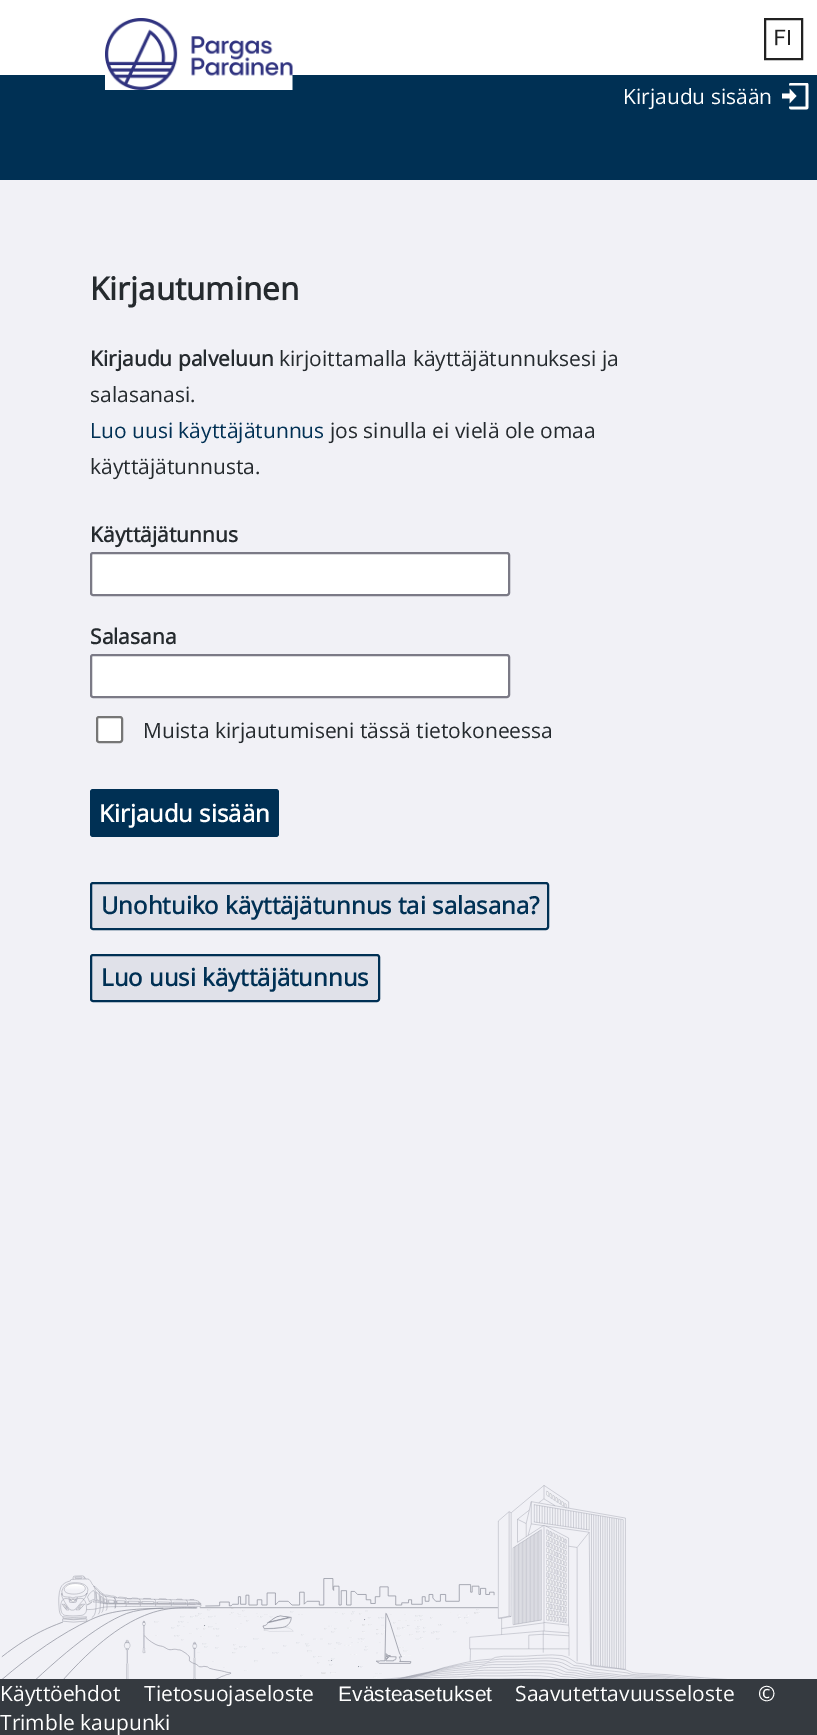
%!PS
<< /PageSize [817 1735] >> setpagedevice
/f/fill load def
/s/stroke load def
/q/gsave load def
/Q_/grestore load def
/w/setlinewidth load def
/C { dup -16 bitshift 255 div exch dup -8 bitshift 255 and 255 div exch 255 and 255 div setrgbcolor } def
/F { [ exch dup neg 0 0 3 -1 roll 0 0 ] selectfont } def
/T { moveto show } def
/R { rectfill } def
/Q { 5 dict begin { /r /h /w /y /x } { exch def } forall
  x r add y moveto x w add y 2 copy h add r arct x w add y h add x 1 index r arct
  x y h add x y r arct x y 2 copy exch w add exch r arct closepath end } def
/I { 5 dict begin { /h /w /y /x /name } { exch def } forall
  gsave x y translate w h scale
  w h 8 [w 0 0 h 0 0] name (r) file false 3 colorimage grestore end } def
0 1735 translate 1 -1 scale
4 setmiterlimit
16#F1F1F6 C
0 0 817 1735 R
16#003054 C
0 75 817 105 R
16#FFFFFF C
0 0 817 75 R
(1.rgb) 775 29 15 17 I
16#212121 C
2 w
765 19 37 40 rectstroke
(2.rgb) 105 18 188 72 I
(3.rgb) 782 83 27 27 I
/OpenSans-Regular 21 F
16#FFFFFF C
(Kirjaudu sisään) 623 104 T
(4.rgb) 1 1485 726 194 I
/OpenSans-Bold 31.5 F
16#252A2E C
(Kirjautuminen) 90 300 T
/OpenSans-Bold 21 F
(Kirjaudu palveluun) 90 366 T
/OpenSans-Regular 21 F
(kirjoittamalla käyttäjätunnuksesi ja) 279 366 T
(salasanasi.) 90 402 T
16#003054 C
(Luo uusi käyttäjätunnus) 90 438 T
16#252A2E C
(jos sinulla ei vielä ole omaa) 330 438 T
(käyttäjätunnusta.) 90 474 T
/OpenSans-Bold 21 F
(Käyttäjätunnus) 90 542 T
16#FFFFFF C
91 553 418 42 2 Q q f Q_
16#7B7A86 C
s
16#252A2E C
(Salasana) 90 644 T
16#FFFFFF C
91 655 418 42 2 Q q f Q_
16#7B7A86 C
s
16#FFFFFF C
97 717 25 25 2 Q q f Q_
16#767676 C
s
/OpenSans-Regular 21 F
16#252A2E C
(Muista kirjautumiseni tässä tietokoneessa) 143 738 T
16#003054 C
90 789 189 48 3 Q f
/OpenSans-Bold 24 F
16#FFFFFF C
(Kirjaudu sisään) 99 822 T
16#E0E1E9 C
91 883 457 46 2 Q q f Q_
16#003054 C
s
(Unohtuiko käyttäjätunnus tai salasana?) 101 914 T
16#E0E1E9 C
91 955 288 46 2 Q q f Q_
16#003054 C
s
(Luo uusi käyttäjätunnus) 101 986 T
16#353A40 C
0 1679 817 56 R
/OpenSans-Regular 21 F
16#FFFFFF C
(Käyttöehdot) 0 1701 T
(Tietosuojaseloste) 144 1701 T
/LiberationSans-Regular 21 F
(Evästeasetukset) 338 1701 T
/OpenSans-Regular 21 F
(Saavutettavuusseloste) 515 1701 T
(©) 758 1701 T
(Trimble kaupunki) 0 1730 T
showpage
